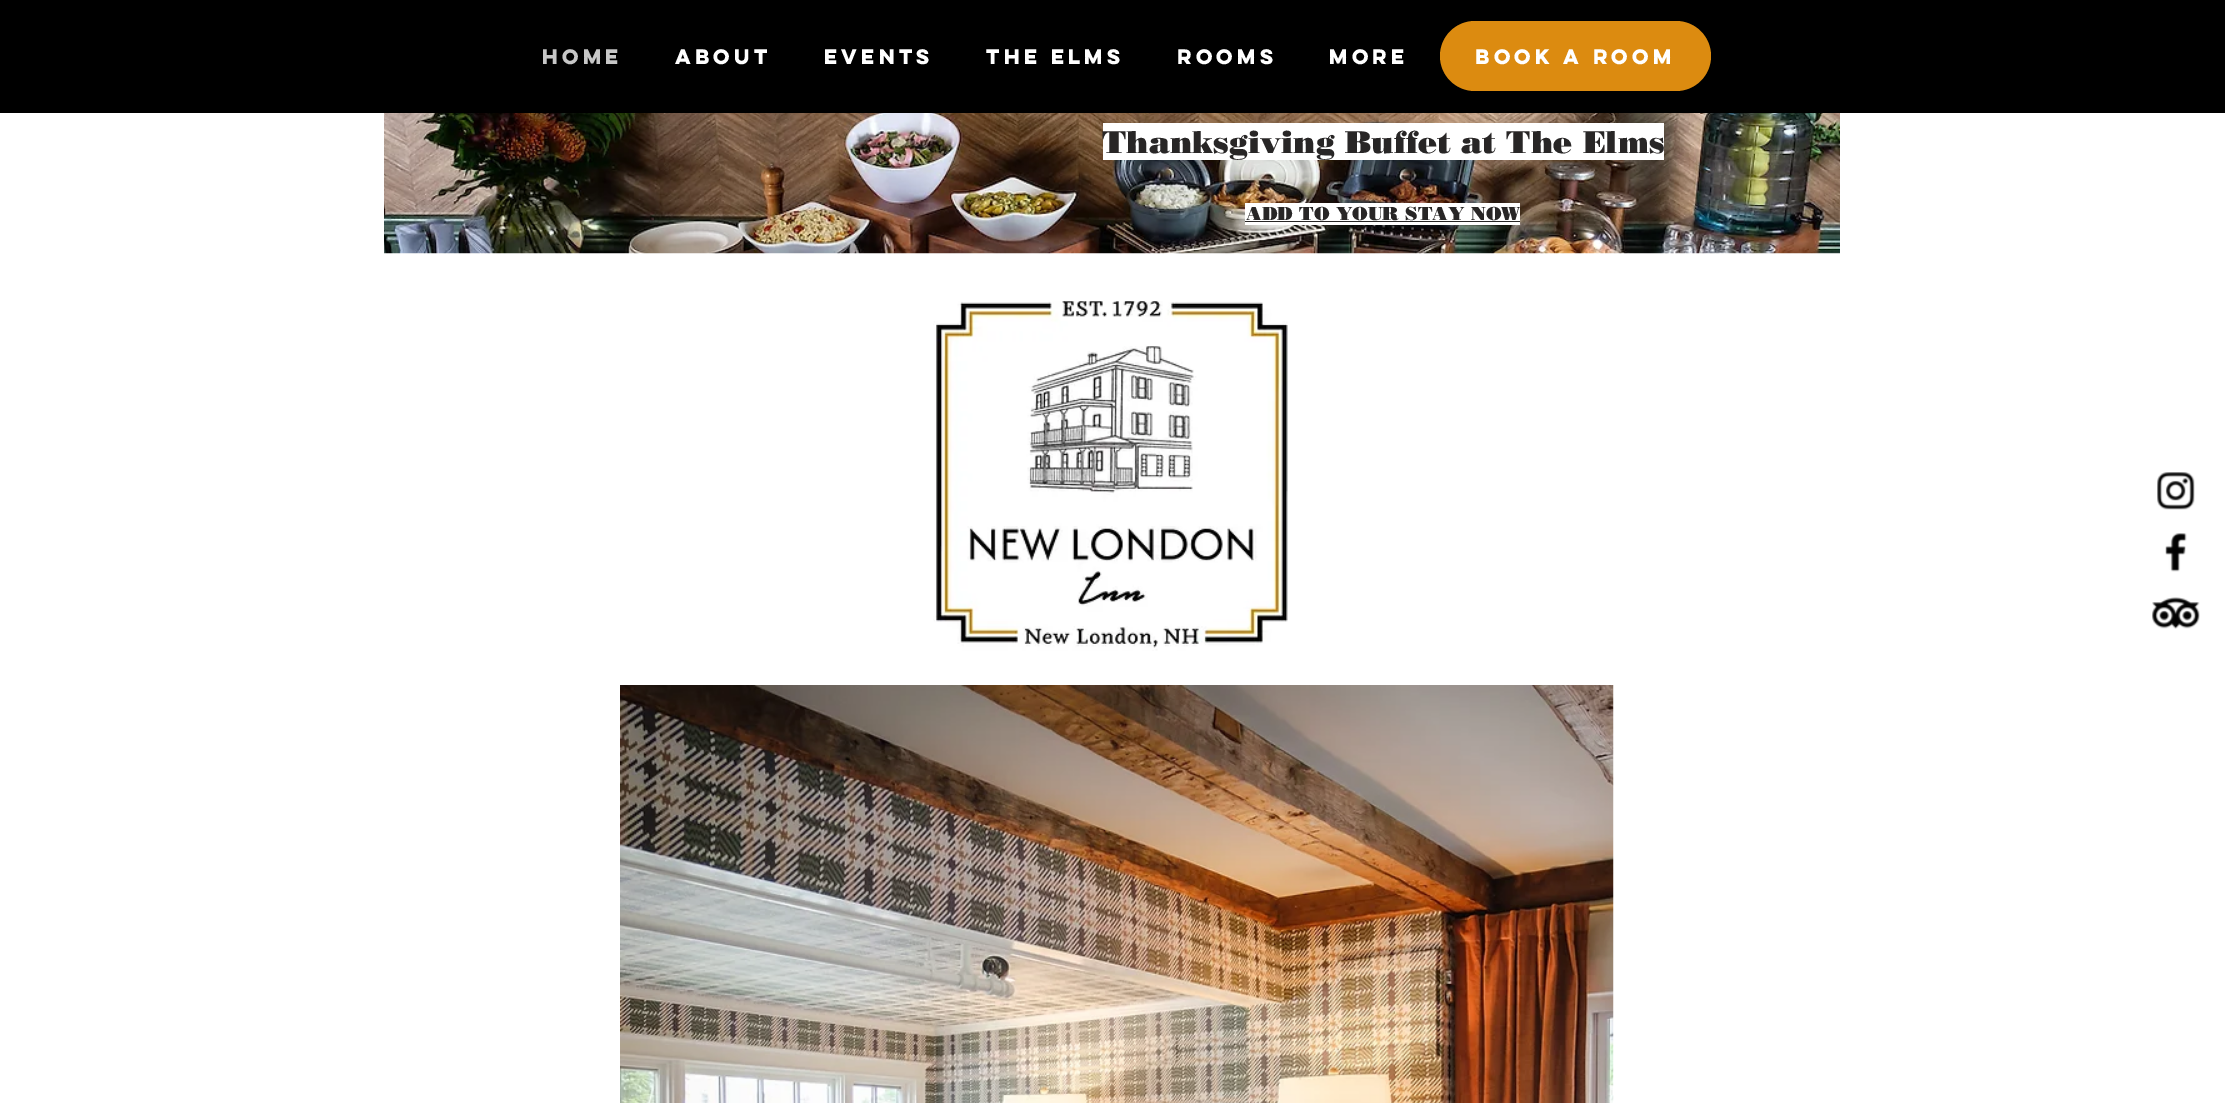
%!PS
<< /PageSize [2225 1103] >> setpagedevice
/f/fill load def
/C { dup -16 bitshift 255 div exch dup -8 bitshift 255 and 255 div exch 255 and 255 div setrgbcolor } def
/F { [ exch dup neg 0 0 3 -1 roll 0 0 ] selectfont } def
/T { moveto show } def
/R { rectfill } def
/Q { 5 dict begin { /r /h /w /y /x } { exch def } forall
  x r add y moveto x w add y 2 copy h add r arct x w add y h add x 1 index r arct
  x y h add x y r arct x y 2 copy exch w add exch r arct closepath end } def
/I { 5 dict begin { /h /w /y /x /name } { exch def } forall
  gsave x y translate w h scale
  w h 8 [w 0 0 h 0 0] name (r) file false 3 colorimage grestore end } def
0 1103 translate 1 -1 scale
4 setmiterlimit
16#FFFFFF C
0 0 2225 1103 R
16#000000 C
0 0 2225 113 R
/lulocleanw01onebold-Bold 18.75 F
16#C7C7C7 C
(HOME) 542 64 T
16#FFFFFF C
(ABOUT) 675 64 T
(EVENTS) 824 64 T
(THE ELMS) 986 64 T
(ROOMS) 1177 64 T
(More) 1329 64 T
16#DC8B10 C
1440 21 271 70 35 Q f
16#FFFFFF C
(Book A Room) 1475 64 T
(1.rgb) 384 113 1456 141 I
1103 123 561 37 R
/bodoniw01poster-Black 31.25 F
16#282626 C
(Thanksgiving Buffet at The Elms) 1102 153 T
16#FFFFFF C
1245 203 275 22 R
/bodoniw01poster-Black 18.75 F
16#282626 C
(ADD TO YOUR STAY NOW) 1246 220 T
1245 221 275 1 R
(2.rgb) 933 301 355 350 I
(3.rgb) 620 685 994 418 I
(4.rgb) 2157 472 38 38 I
(5.rgb) 2165 533 22 39 I
(6.rgb) 2152 597 48 32 I
showpage
